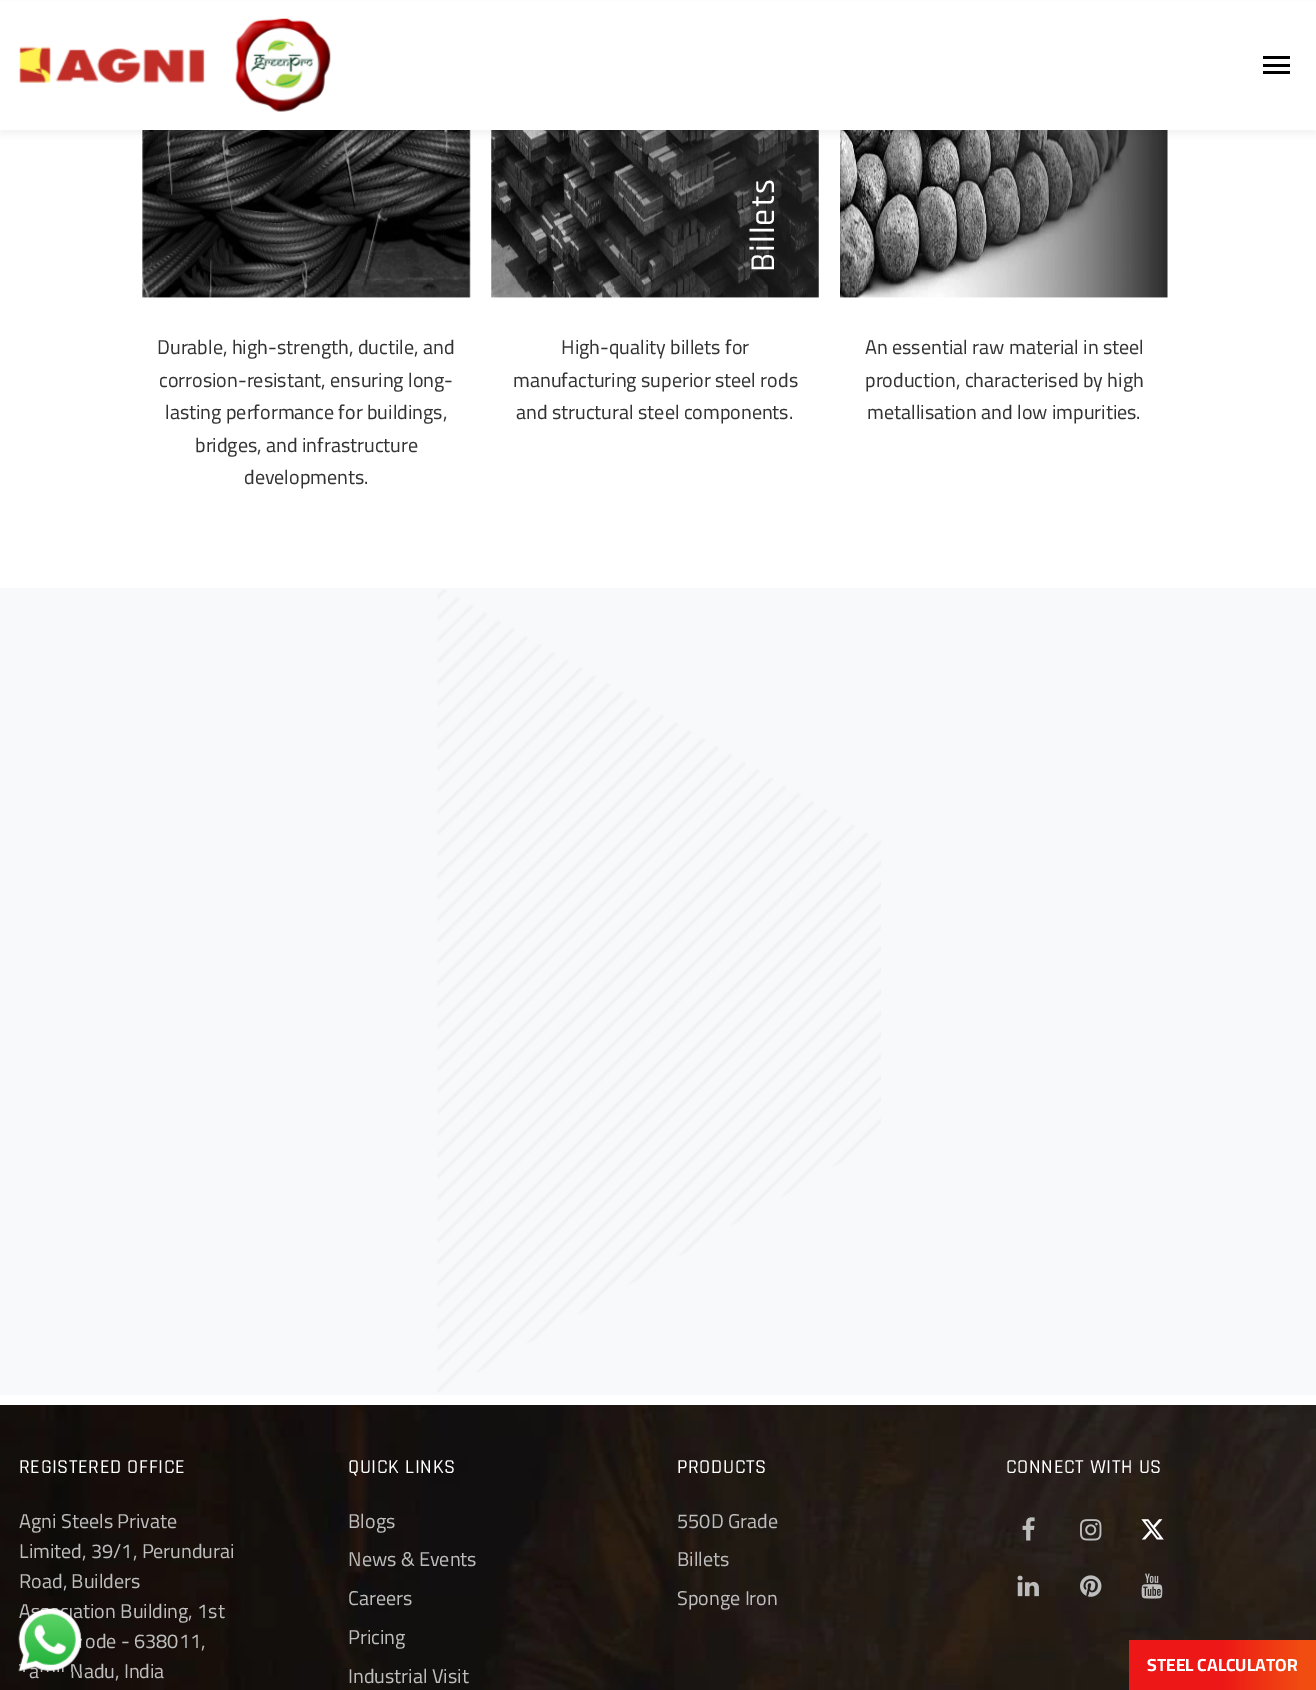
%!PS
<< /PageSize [1316 1690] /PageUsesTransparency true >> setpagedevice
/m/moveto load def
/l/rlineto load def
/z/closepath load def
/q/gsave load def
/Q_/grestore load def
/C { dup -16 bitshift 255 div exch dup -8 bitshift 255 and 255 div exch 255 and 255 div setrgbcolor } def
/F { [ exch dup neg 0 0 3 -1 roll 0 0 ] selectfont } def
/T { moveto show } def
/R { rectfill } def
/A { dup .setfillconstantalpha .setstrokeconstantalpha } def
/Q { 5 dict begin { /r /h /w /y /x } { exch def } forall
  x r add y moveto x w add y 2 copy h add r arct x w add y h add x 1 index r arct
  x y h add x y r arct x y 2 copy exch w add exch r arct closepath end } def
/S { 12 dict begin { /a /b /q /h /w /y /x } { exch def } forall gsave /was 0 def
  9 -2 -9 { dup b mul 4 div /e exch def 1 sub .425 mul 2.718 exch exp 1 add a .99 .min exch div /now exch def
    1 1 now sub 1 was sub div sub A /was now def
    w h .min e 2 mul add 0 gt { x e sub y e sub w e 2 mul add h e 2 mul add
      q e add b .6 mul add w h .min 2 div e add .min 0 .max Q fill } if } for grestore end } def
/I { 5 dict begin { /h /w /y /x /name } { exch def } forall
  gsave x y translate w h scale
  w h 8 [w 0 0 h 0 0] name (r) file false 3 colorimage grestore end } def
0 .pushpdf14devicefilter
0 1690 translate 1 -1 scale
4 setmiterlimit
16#FFFFFF C
0 0 1316 1690 R
(3.rgb) 142 130 329 168 I
(4.rgb) 491 130 328 168 I
(5.rgb) 840 130 328 168 I
16#000000 C
0 4 1316 130 0 4 .05 S
16#FFFFFF C
0 1 1316 129 R
(1.rgb) 19 46 186 37 I
(2.rgb) 235 18 96 94 I
16#000000 C
1263 56 27 3 R
1263 64 27 3 R
1263 71 27 3 R
/Cairo-Regular 20 F
16#333333 C
(Durable, high-strength, ductile, and) 157 354 T
(corrosion-resistant, ensuring long-) 159 387 T
(lasting performance for buildings,) 165 419 T
(bridges, and infrastructure) 195 452 T
(developments.) 244 484 T
/Rajdhani-Medium 35 F
16#FFFFFF C
q 774 272 translate -90 rotate 0 0 m 1 0 (Billets) ashow Q_
/Cairo-Regular 20 F
16#333333 C
(High-quality billets for) 561 354 T
(manufacturing superior steel rods) 513 387 T
(and structural steel components.) 516 419 T
(An essential raw material in steel) 865 354 T
(production, characterised by high) 865 387 T
(metallisation and low impurities.) 867 419 T
16#F7F9FB C
0 588 1316 807 R
(6.rgb) 437 589 444 804 I
(7.rgb) 0 1405 1316 285 I
/Rajdhani-Medium 20 F
16#FFFFFF C
19 1473 m .6 0 (REGISTERED OFFICE) ashow
/Cairo-Regular 20 F
16#BDBDBD C
(Agni Steels Private) 19 1528 T
(Limited, 39/1, Perundurai) 19 1558 T
(Road, Builders) 19 1588 T
(A) 19 1618 T
(ation Building, 1st) 73 1618 T
(ode - 638011,) 85 1648 T
(a) 29 1678 T
(Nadu, India) 70 1678 T
/Rajdhani-Medium 20 F
16#FFFFFF C
348 1473 m .6 0 (QUICK LINKS) ashow
/Cairo-Regular 20 F
16#BDBDBD C
(Blogs) 348 1528 T
(News & Events) 348 1566 T
(Careers) 348 1605 T
(Pricing) 348 1644 T
(Industrial Visit) 348 1683 T
/Rajdhani-Medium 20 F
16#FFFFFF C
677 1473 m .6 0 (PRODUCTS) ashow
/Cairo-Regular 20 F
16#BDBDBD C
(550D Grade) 677 1528 T
(Billets) 677 1566 T
(Sponge Iron) 677 1605 T
/Rajdhani-Medium 20 F
16#FFFFFF C
1006 1473 m .6 0 (CONNECT WITH US) ashow
(8.rgb) 1022 1517 13 24 I
(9.rgb) 1080 1519 22 22 I
(10.rgb) 1141 1519 23 21 I
(11.rgb) 1017 1575 22 22 I
(12.rgb) 1080 1575 22 22 I
(13.rgb) 1141 1573 22 26 I
(14.rgb) 18 1608 64 64 I
q 1129 1640 m 187 0 l 0 50 l -187 0 l z clip newpath
<< /ShadingType 2 /ColorSpace /DeviceRGB /Coords [1129 1665 1316 1665] /Extend [true true] /Function << /FunctionType 3 /Domain [0 1] /Functions [<< /FunctionType 2 /Domain [0 1] /C0 [.929 .09 .09] /C1 [.929 .09 .09] /N 1 >> << /FunctionType 2 /Domain [0 1] /C0 [.929 .09 .09] /C1 [.949 .302 .067] /N 1 >> << /FunctionType 2 /Domain [0 1] /C0 [.949 .302 .067] /C1 [.949 .302 .067] /N 1 >>] /Bounds [.49 .92] /Encode [0 1 0 1 0 1] >> >> shfill Q_
/Cairo-Bold 17.5 F
(STEEL CALCULATOR) 1147 1671 T
.poppdf14devicefilter showpage
